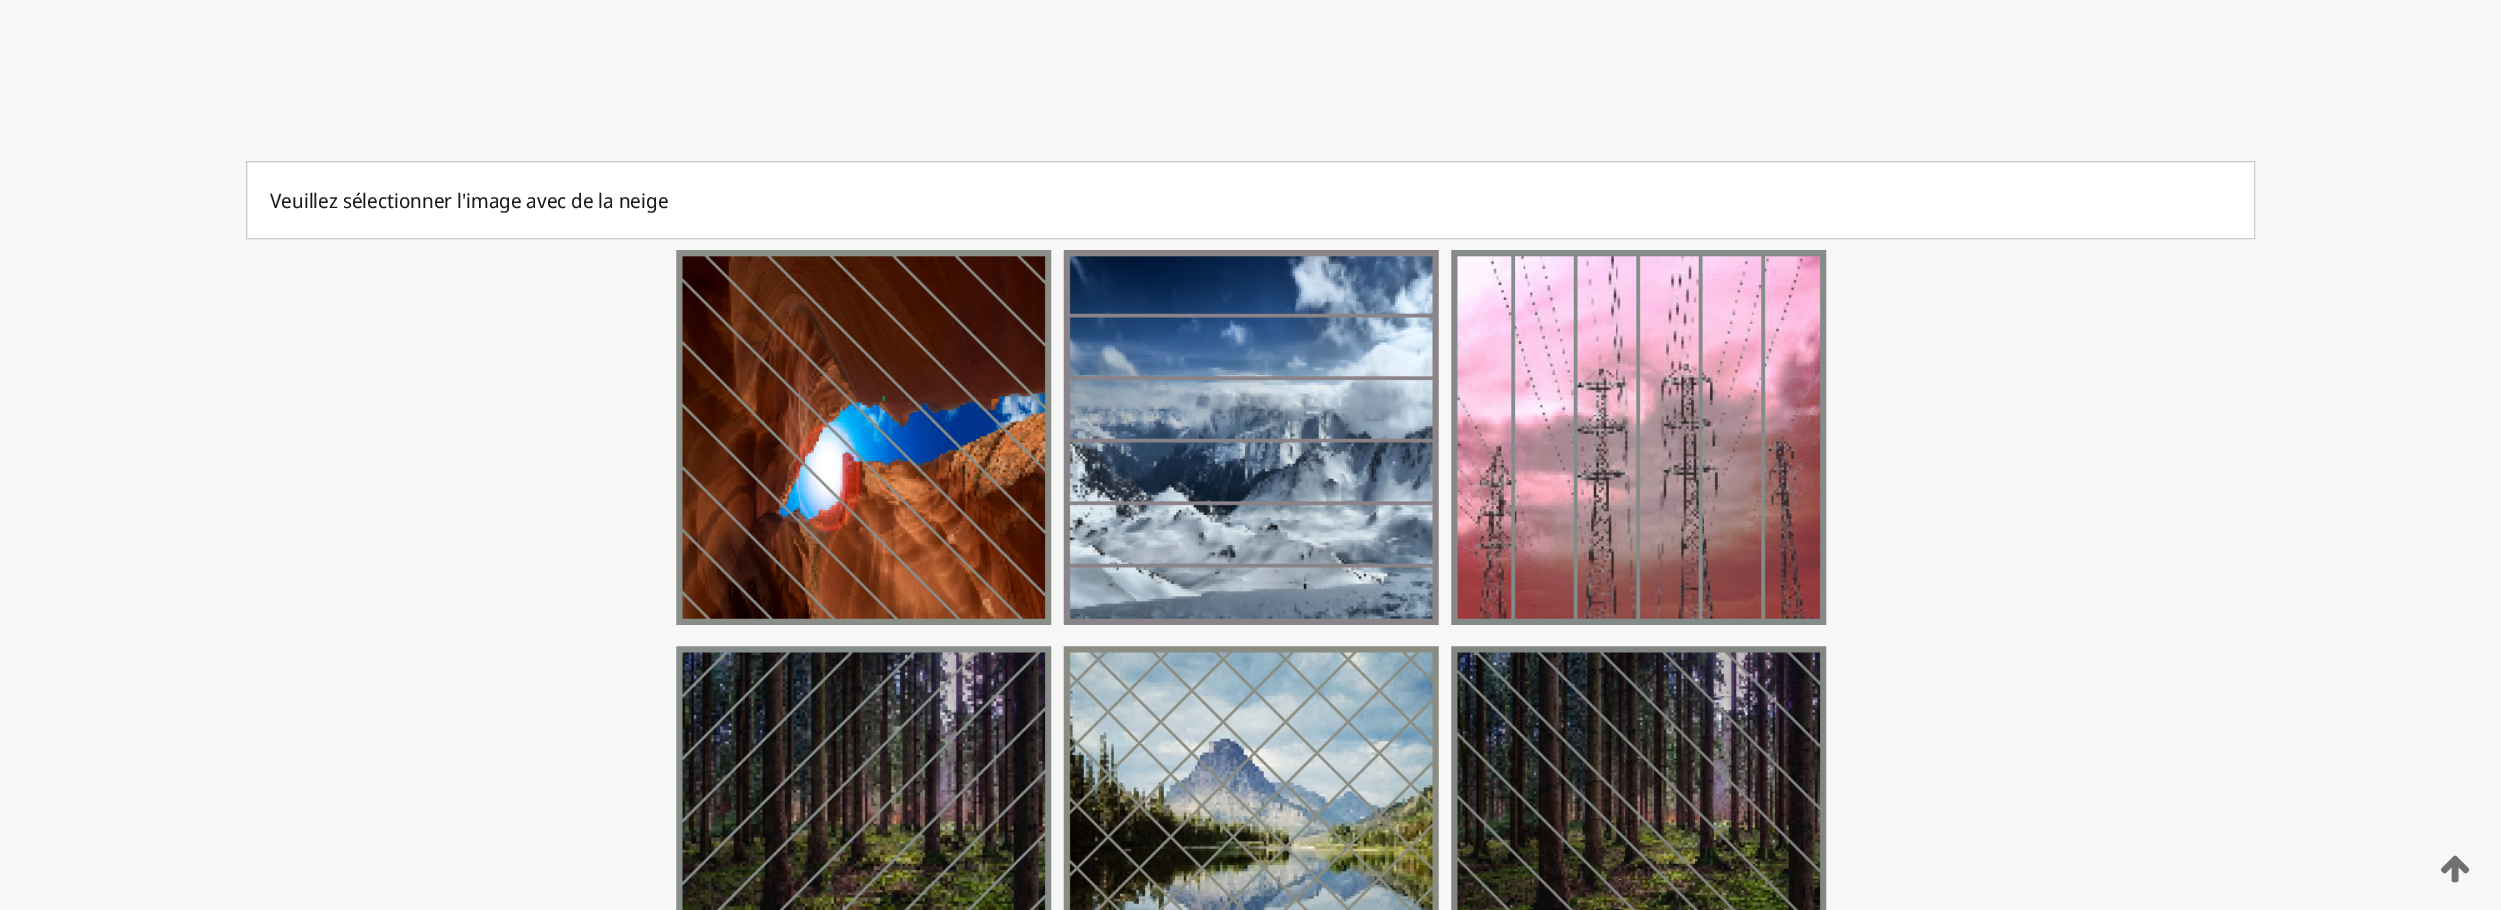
%!PS
<< /PageSize [2501 910] >> setpagedevice
/C { dup -16 bitshift 255 div exch dup -8 bitshift 255 and 255 div exch 255 and 255 div setrgbcolor } def
/F { [ exch dup neg 0 0 3 -1 roll 0 0 ] selectfont } def
/T { moveto show } def
/R { rectfill } def
/I { 5 dict begin { /h /w /y /x /name } { exch def } forall
  gsave x y translate w h scale
  w h 8 [w 0 0 h 0 0] name (r) file false 3 colorimage grestore end } def
0 910 translate 1 -1 scale
4 setmiterlimit
16#F7F7F7 C
0 0 2501 910 R
16#FFFFFF C
248 163 2006 75 R
16#CCCCCC C
246.5 161.5 2008 77 rectstroke
/NotoSansDisplay-Regular 20 F
16#1A1A1A C
(Veuillez sélectionner l'image avec de la neige) 270 208 T
(1.rgb) 676 250 376 375 I
(2.rgb) 1063 250 376 375 I
(3.rgb) 1451 250 376 375 I
(4.rgb) 676 646 376 264 I
(5.rgb) 1063 646 376 264 I
(6.rgb) 1451 646 376 264 I
(7.rgb) 2441 855 29 28 I
showpage
